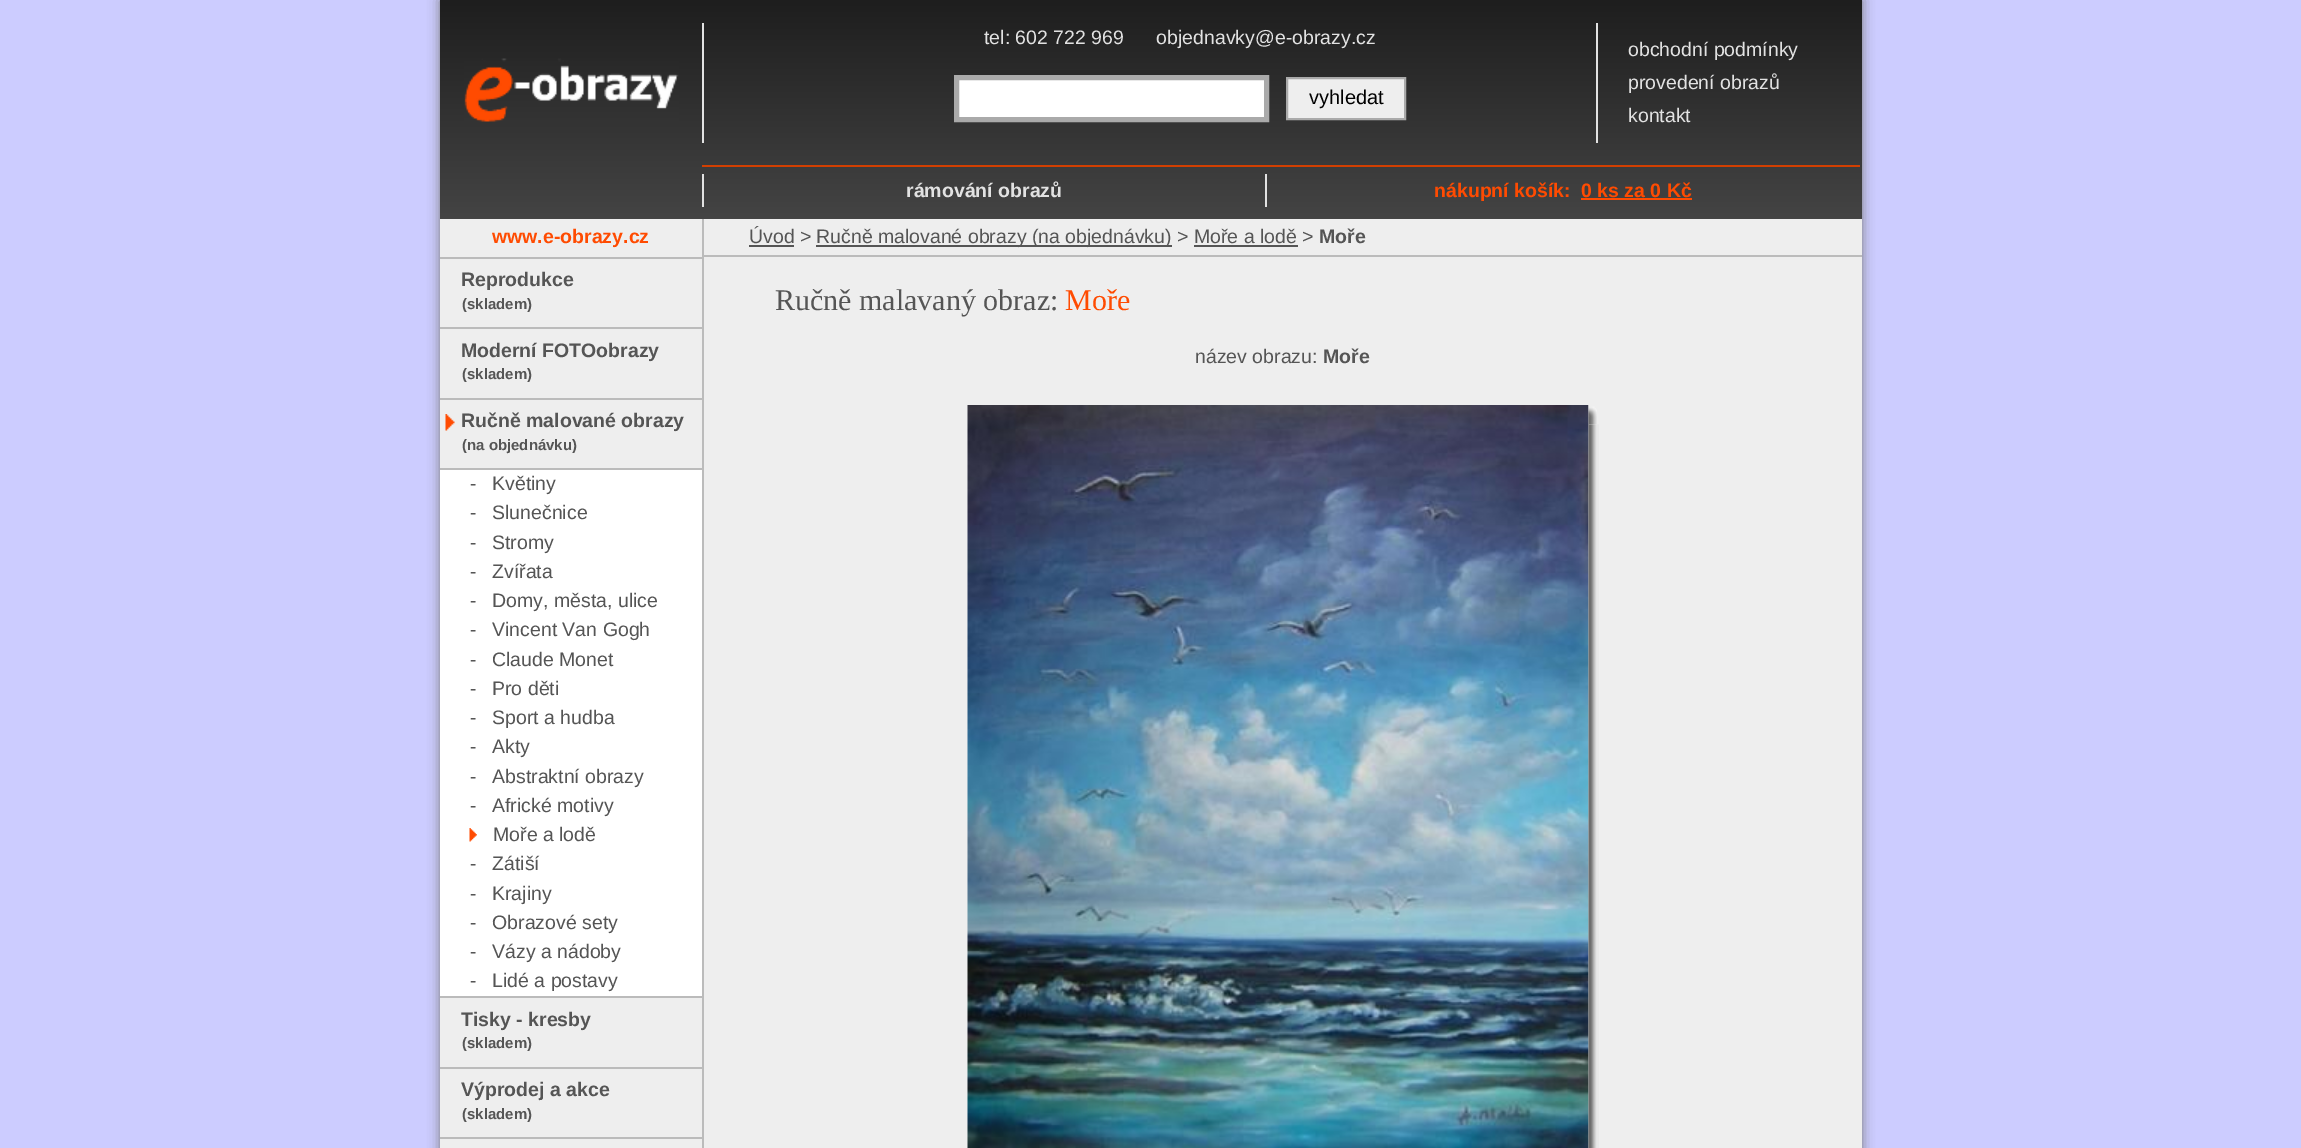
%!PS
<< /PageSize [2301 1148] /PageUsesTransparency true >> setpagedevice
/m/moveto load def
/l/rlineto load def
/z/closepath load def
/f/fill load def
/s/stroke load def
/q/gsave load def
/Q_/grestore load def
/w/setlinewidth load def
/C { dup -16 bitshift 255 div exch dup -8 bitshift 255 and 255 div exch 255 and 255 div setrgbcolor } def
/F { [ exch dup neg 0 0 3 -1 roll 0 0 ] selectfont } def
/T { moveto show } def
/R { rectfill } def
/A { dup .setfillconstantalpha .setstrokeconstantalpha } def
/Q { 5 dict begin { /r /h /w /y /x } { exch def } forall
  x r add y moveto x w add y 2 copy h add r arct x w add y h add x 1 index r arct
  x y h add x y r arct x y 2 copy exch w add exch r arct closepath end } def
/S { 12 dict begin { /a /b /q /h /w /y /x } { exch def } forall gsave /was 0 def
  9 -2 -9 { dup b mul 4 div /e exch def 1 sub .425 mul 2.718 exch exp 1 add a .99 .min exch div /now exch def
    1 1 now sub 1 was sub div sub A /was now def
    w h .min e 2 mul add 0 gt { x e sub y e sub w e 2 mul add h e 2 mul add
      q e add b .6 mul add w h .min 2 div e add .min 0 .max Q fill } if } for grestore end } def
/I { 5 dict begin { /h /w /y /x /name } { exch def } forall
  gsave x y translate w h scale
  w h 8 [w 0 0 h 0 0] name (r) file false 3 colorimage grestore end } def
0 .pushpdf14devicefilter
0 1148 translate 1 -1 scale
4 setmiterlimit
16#CCCCFF C
0 0 2301 1148 R
16#777777 C
440 0 1422 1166 0 6 1 S
16#EEEEEE C
440 219 1422 929 R
q 440 0 m 1422 0 l 0 219 l -1422 0 l z clip newpath
<< /ShadingType 2 /ColorSpace /DeviceRGB /Coords [440 0 440 219] /Extend [true true] /Function << /FunctionType 2 /Domain [0 1] /C0 [.118 .118 .118] /C1 [.267 .267 .267] /N 1 >> >> shfill Q_
(1.rgb) 464 58 215 64 I
16#E2E2E2 C
1596 23 2 120 R
702 23 2 120 R
/LiberationSans-Regular 19.5 F
(tel: 602 722 969      objednavky@e-obrazy.cz) 984 44 T
16#FFFFFF C
956.5 77.5 m 310 0 l 0 42 l -310 0 l z q f Q_
16#AAAAAA C
5 w
s
16#EEEEEE C
1287 78 m 118 0 l 0 41 l -118 0 l z q f Q_
16#AAAAAA C
2 w
s
/LiberationSans-Regular 20 F
16#000000 C
(vyhledat) 1309 104 T
/LiberationSans-Regular 19.5 F
16#E2E2E2 C
(obchodní podmínky) 1628 56 T
(provedení obrazů) 1628 89 T
(kontakt) 1628 122 T
16#D23F01 C
702 165 1158 2 R
16#E2E2E2 C
702 174 2 33 R
/LiberationSans-Bold 19.5 F
(rámování obrazů) 906 197 T
1265 174 2 33 R
16#FF4B01 C
(nákupní košík:) 1434 197 T
(0 ks za 0 Kč) 1581 197 T
1581 198 111 2 R
16#BBBBBB C
440 257 262 2 R
16#FF4B01 C
(www.e-obrazy.cz) 492 243 T
16#BBBBBB C
440 327 262 2 R
16#555555 C
(Reprodukce) 461 286 T
/LiberationSans-Bold 15 F
(\(skladem\)) 462 309 T
16#BBBBBB C
440 398 262 2 R
/LiberationSans-Bold 19.5 F
16#555555 C
(Moderní FOTOobrazy) 461 357 T
/LiberationSans-Bold 15 F
(\(skladem\)) 462 379 T
16#BBBBBB C
440 468 262 2 R
(2.rgb) 445 414 10 17 I
/LiberationSans-Bold 19.5 F
16#555555 C
(Ručně malované obrazy) 461 427 T
/LiberationSans-Bold 15 F
(\(na objednávku\)) 462 450 T
16#FFFFFF C
440 470 262 526 R
16#BBBBBB C
440 996 262 2 R
/LiberationSans-Regular 19.5 F
16#555555 C
(-) 470 490 T
(Květiny) 492 490 T
(-) 470 519 T
(Slunečnice) 492 519 T
(-) 470 549 T
(Stromy) 492 549 T
(-) 470 578 T
(Zvířata) 492 578 T
(-) 470 607 T
(Domy, města, ulice) 492 607 T
(-) 470 636 T
(Vincent Van Gogh) 492 636 T
(-) 470 666 T
(Claude Monet) 492 666 T
(-) 470 695 T
(Pro děti) 492 695 T
(-) 470 724 T
(Sport a hudba) 492 724 T
(-) 470 753 T
(Akty) 492 753 T
(-) 470 783 T
(Abstraktní obrazy) 492 783 T
(-) 470 812 T
(Africké motivy) 492 812 T
(3.rgb) 469 828 8 14 I
(Moře a lodě) 493 841 T
(-) 470 870 T
(Zátiší) 492 870 T
(-) 470 900 T
(Krajiny) 492 900 T
(-) 470 929 T
(Obrazové sety) 492 929 T
(-) 470 958 T
(Vázy a nádoby) 492 958 T
(-) 470 987 T
(Lidé a postavy) 492 987 T
16#BBBBBB C
440 1067 262 2 R
/LiberationSans-Bold 19.5 F
16#555555 C
(Tisky - kresby) 461 1026 T
/LiberationSans-Bold 15 F
(\(skladem\)) 462 1048 T
16#BBBBBB C
440 1137 262 2 R
/LiberationSans-Bold 19.5 F
16#555555 C
(Výprodej a akce) 461 1096 T
/LiberationSans-Bold 15 F
(\(skladem\)) 462 1119 T
16#BBBBBB C
702 219 2 929 R
704 255 1158 2 R
/LiberationSans-Regular 19.5 F
16#555555 C
(Úvod >) 749 243 T
749 245 45 2 R
816 245 356 2 R
(Ručně malované obrazy \(na objednávku\) > Moře a lodě >) 816 243 T
/LiberationSans-Bold 19.5 F
(Moře) 1319 243 T
1194 245 104 2 R
/LiberationSerif-Regular 30 F
(Ručně malavaný obraz:) 775 310 T
16#FF4B01 C
(Moře) 1065 310 T
/LiberationSans-Regular 19.5 F
16#555555 C
(název obrazu:) 1195 363 T
/LiberationSans-Bold 19.5 F
(Moře) 1323 363 T
(4.rgb) 967 405 622 743 I
(5.rgb) 1588 405 9 20 I
(6.rgb) 1588 424 11 724 I
.poppdf14devicefilter showpage
